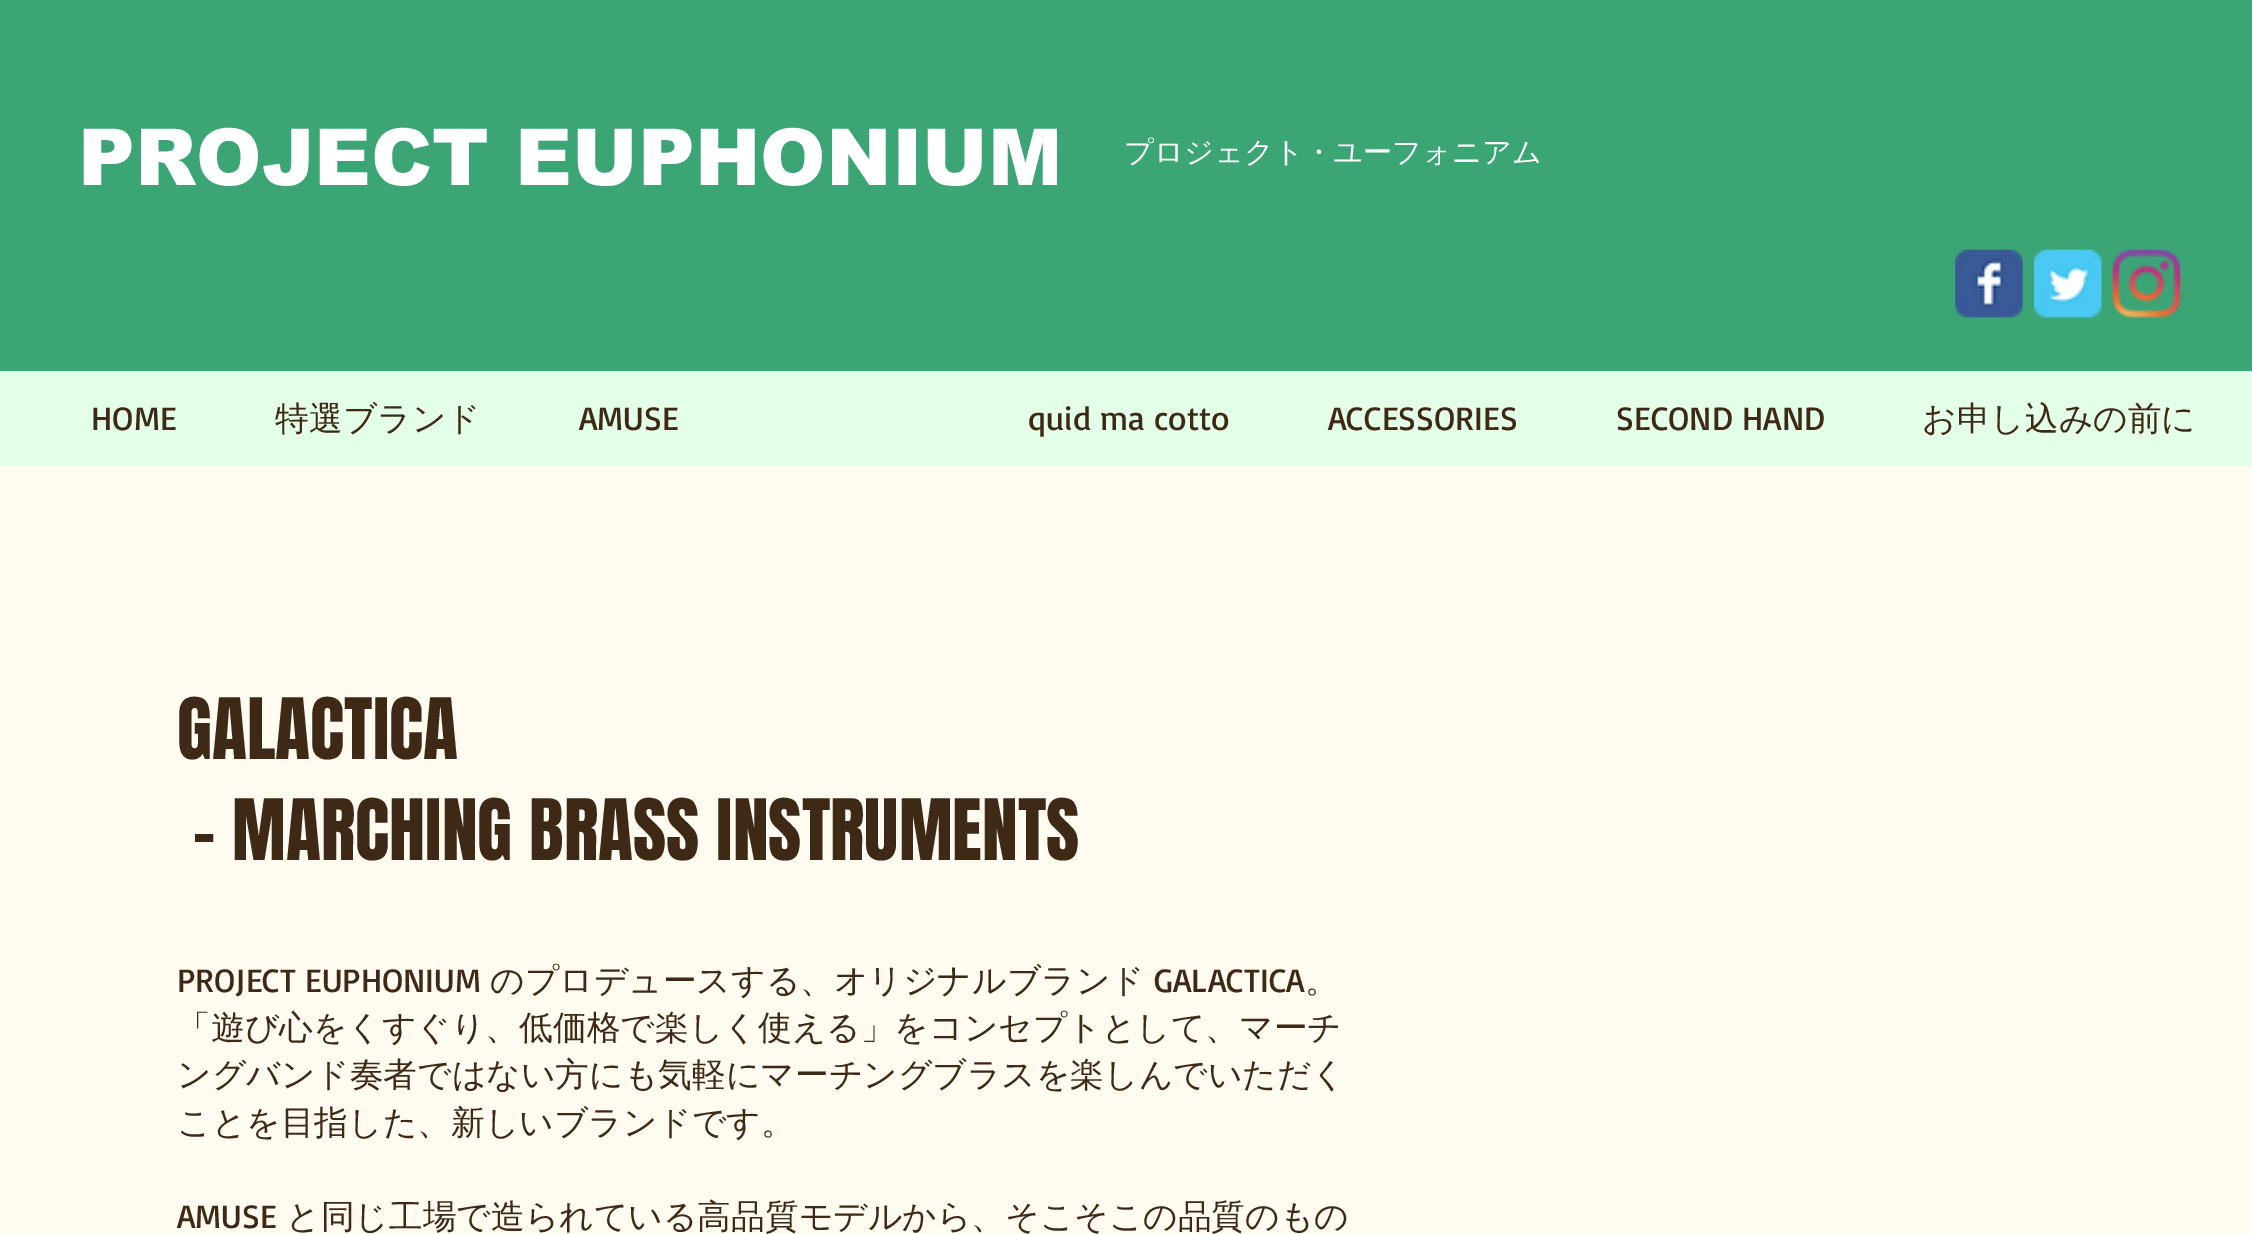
%!PS
<< /PageSize [2252 1234] >> setpagedevice
/C { dup -16 bitshift 255 div exch dup -8 bitshift 255 and 255 div exch 255 and 255 div setrgbcolor } def
/F { [ exch dup neg 0 0 3 -1 roll 0 0 ] selectfont } def
/T { moveto show } def
/R { rectfill } def
/I { 5 dict begin { /h /w /y /x /name } { exch def } forall
  gsave x y translate w h scale
  w h 8 [w 0 0 h 0 0] name (r) file false 3 colorimage grestore end } def
0 1234 translate 1 -1 scale
4 setmiterlimit
16#FFFBF1 C
0 0 2252 1234 R
16#3BA576 C
0 0 2252 371 R
/arial-Black 78.75 F
16#FFFFFF C
(PROJECT EUPHONIUM) 78 185 T
/WenQuanYiZenHei-Medium 29.25 F
(プロジェクト・ユーフォニアム) 1124 162 T
(1.rgb) 1955 249 68 69 I
(2.rgb) 2034 249 68 69 I
(3.rgb) 2112 249 69 69 I
16#E3FFE8 C
0 371 2252 95 R
/Basic-Regular 33.75 F
16#3E2816 C
(HOME) 91 430 T
/WenQuanYiZenHei-Medium 33.75 F
(特選ブランド) 275 430 T
/Basic-Regular 33.75 F
(AMUSE) 579 430 T
(quid ma cotto) 1028 430 T
(ACCESSORIES) 1328 430 T
(SECOND HAND) 1616 430 T
/WenQuanYiZenHei-Medium 33.75 F
(お申し込みの前に) 1922 430 T
/Anton-Regular 72 F
(GALACTICA) 177 759 T
(- MARCHING BRASS INSTRUMENTS) 193 860 T
/Basic-Regular 33.75 F
(PROJECT EUPHONIUM) 177 992 T
/WenQuanYiZenHei-Medium 33.75 F
(のプロデュースする、オリジナルブランド) 490 992 T
/Basic-Regular 33.75 F
(GALACTICA) 1154 992 T
/WenQuanYiZenHei-Medium 33.75 F
(。) 1305 992 T
(「遊び心をくすぐり、低価格で楽しく使える」をコンセプトとして、マーチ) 177 1039 T
(ングバンド奏者ではない方にも気軽にマーチングブラスを楽しんでいただく) 177 1086 T
(ことを目指した、新しいブランドです。) 177 1134 T
/Basic-Regular 33.75 F
(AMUSE) 177 1228 T
/WenQuanYiZenHei-Medium 33.75 F
(と同じ工場で造られている高品質モデルから、そこそこの品質のもの) 286 1228 T
showpage
